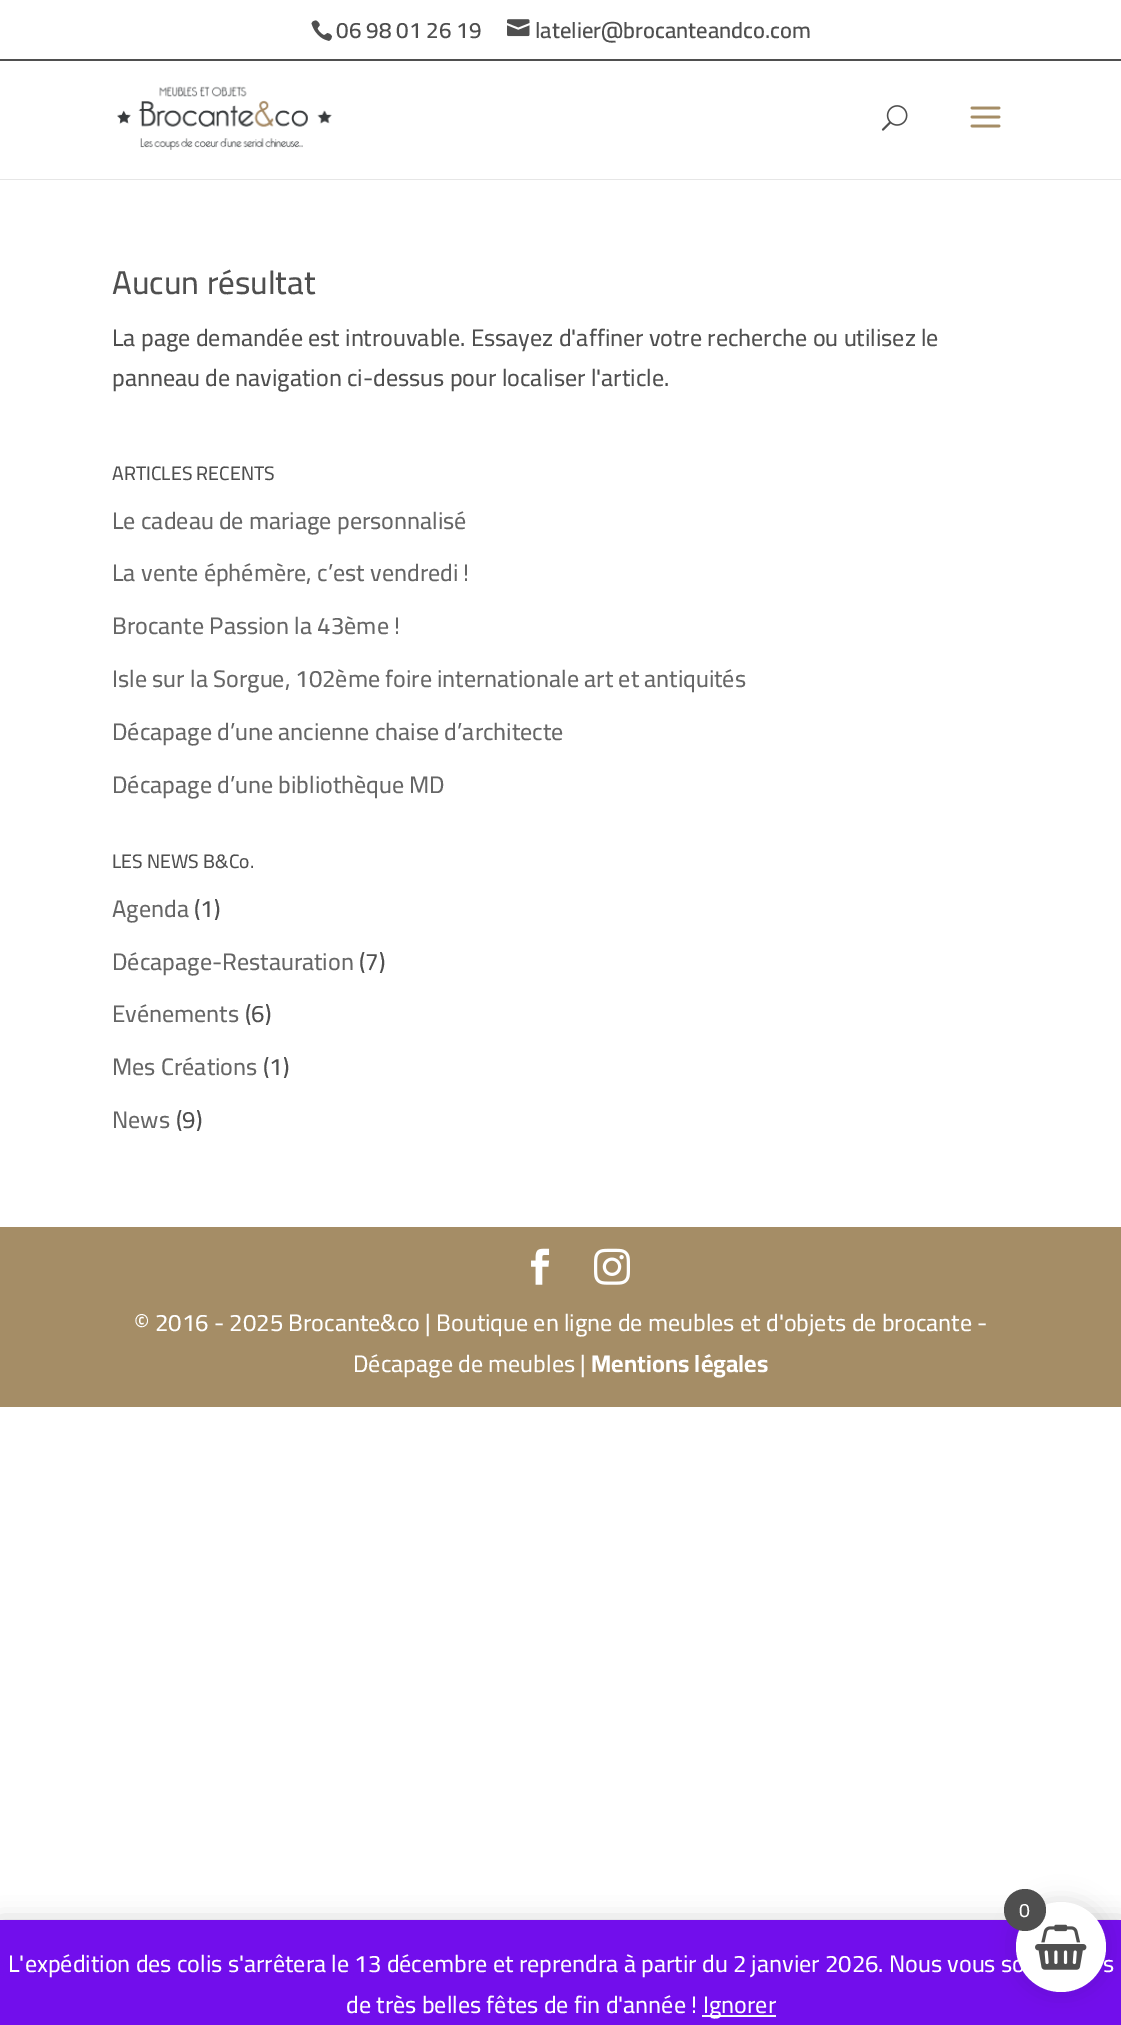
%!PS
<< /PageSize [1121 2025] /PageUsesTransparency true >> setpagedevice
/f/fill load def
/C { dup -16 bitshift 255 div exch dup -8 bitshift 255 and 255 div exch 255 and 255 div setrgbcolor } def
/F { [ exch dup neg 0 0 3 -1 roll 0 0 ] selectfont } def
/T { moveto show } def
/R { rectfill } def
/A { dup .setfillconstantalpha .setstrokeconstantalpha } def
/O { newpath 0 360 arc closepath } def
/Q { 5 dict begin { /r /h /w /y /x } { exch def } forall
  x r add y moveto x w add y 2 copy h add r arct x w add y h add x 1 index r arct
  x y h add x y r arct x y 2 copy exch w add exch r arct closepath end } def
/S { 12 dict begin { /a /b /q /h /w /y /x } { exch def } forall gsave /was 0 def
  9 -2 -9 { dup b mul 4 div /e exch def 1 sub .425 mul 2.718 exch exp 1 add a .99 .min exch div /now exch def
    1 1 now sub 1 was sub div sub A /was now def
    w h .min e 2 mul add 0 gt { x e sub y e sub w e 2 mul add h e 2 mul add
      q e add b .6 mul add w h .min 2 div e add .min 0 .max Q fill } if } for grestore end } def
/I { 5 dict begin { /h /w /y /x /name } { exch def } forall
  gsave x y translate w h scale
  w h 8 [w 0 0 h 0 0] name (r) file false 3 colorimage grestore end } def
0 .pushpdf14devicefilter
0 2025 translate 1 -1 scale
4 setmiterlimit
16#FFFFFF C
0 0 1121 2025 R
16#4F4F4F C
0 59 1121 2 R
(1.rgb) 311 20 22 21 I
/Cairo-SemiBold 22.5 F
(06 98 01 26 19) 336 38 T
(2.rgb) 507 19 23 18 I
(latelier@brocanteandco.com) 535 38 T
16#E6E6E6 C
0 179 1121 1 R
(3.rgb) 117 86 215 64 I
(4.rgb) 881 105 27 26 I
(5.rgb) 970 106 31 22 I
/Cairo-Medium 33 F
16#4F4F4F C
(Aucun résultat) 112 294 T
/Cairo-Medium 24 F
(La page demandée est introuvable. Essayez d'affiner votre recherche ou utilisez le) 112 346 T
(panneau de navigation ci-dessus pour localiser l'article.) 112 386 T
/Cairo-Medium 19.5 F
(ARTICLES RECENTS) 112 480 T
/Cairo-Medium 24 F
16#666666 C
(Le cadeau de mariage personnalisé) 112 529 T
(La vente éphémère, c’est vendredi !) 112 581 T
(Brocante Passion la 43ème !) 112 634 T
(Isle sur la Sorgue, 102ème foire internationale art et antiquités) 112 687 T
(Décapage d’une ancienne chaise d’architecte) 112 740 T
(Décapage d’une bibliothèque MD) 112 793 T
/Cairo-Medium 19.5 F
16#4F4F4F C
(LES NEWS B&Co.) 112 868 T
/Cairo-Medium 24 F
16#666666 C
(Agenda) 112 917 T
16#4F4F4F C
(\(1\)) 194 917 T
16#666666 C
(Décapage-Restauration) 112 970 T
16#4F4F4F C
(\(7\)) 359 970 T
16#666666 C
(Evénements) 112 1022 T
16#4F4F4F C
(\(6\)) 245 1022 T
16#666666 C
(Mes Créations) 112 1075 T
16#4F4F4F C
(\(1\)) 263 1075 T
16#666666 C
(News) 112 1128 T
16#4F4F4F C
(\(9\)) 176 1128 T
16#A58D66 C
0 1227 1121 180 R
(6.rgb) 531 1248 19 37 I
(7.rgb) 594 1248 36 37 I
16#FFFFFF C
(© 2016 - 2025 Brocante&co | Boutique en ligne de meubles et d'objets de brocante -) 134 1331 T
(Décapage de meubles |) 353 1372 T
/Cairo-Bold 24 F
(Mentions légales) 591 1372 T
16#000000 C
0 1922 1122 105 0 12 .2 S
16#720EEC C
0 1920 1121 105 R
16#000000 C
1013 1899 96 96 48 11 .1 S
16#FFFFFF C
1061 1947 45 O f
(8.rgb) 1035 1924 52 46 I
16#4F4F4F C
1025 1910 21 O f
/Cairo-Medium 19.5 F
16#FFFFFF C
(0) 1019 1917 T
/Cairo-Medium 24 F
(L'expédition des colis s'arrêtera le 13 décembre et reprendra à partir du 2 janvier 2026. Nous vous so) 8 1972 T
(s) 1103 1972 T
(de très belles fêtes de fin d'année !) 346 2013 T
16#FCFBFE C
702 2015 74 2 R
16#FFFFFF C
(Ignorer) 703 2013 T
.poppdf14devicefilter showpage
